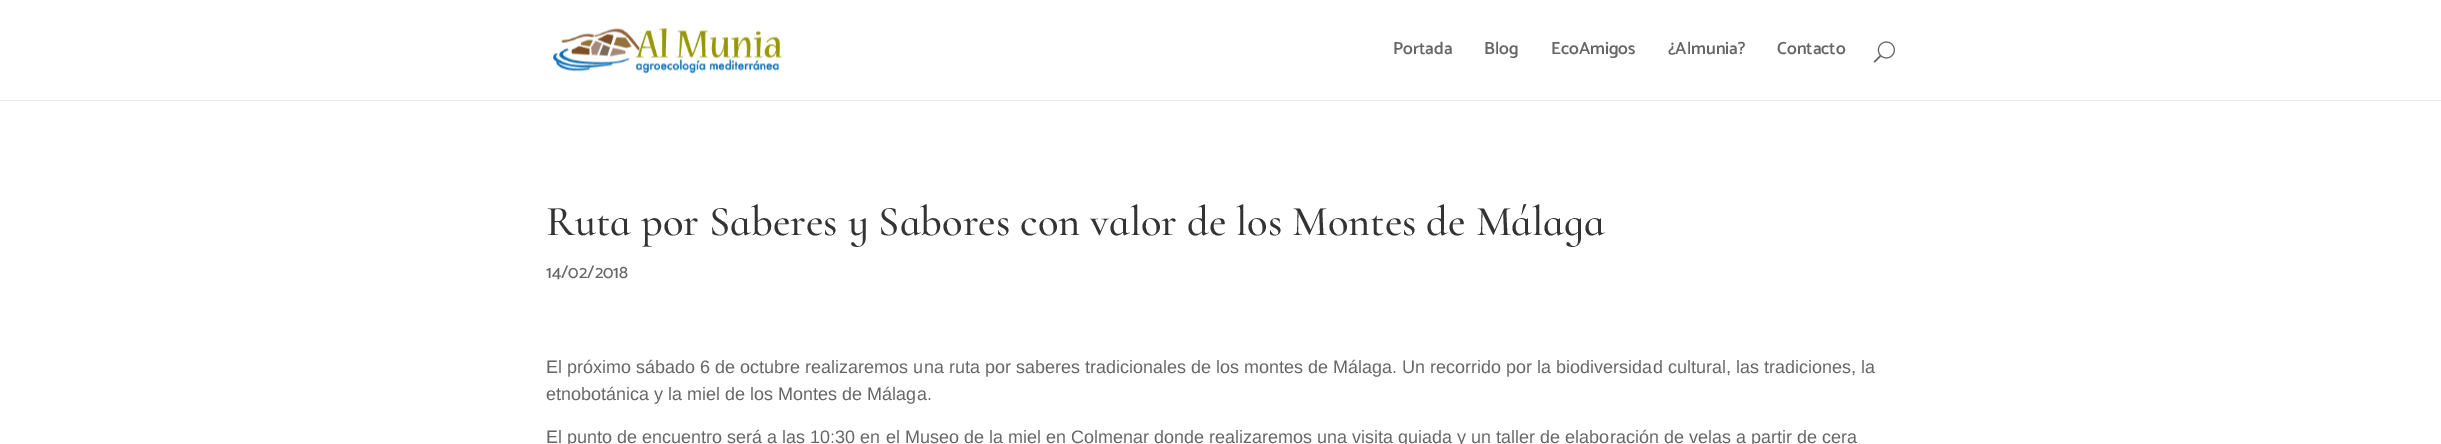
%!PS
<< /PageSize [2441 444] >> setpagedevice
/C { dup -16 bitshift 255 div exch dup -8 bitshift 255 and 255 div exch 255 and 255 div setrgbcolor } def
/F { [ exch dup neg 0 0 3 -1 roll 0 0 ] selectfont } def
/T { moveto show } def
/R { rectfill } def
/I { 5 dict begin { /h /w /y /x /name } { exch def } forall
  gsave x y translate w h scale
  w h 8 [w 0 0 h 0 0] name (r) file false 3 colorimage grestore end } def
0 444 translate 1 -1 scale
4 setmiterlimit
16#FFFFFF C
0 0 2441 444 R
16#E6E6E6 C
0 100 2441 1 R
(1.rgb) 553 28 230 46 I
/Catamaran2-Thin 17.5 F
16#666666 C
(Portada) 1393 54 T
(Blog) 1484 54 T
(EcoAmigos) 1551 54 T
(¿Almunia?) 1668 54 T
(Contacto) 1777 54 T
(2.rgb) 1873 41 22 22 I
/CormorantInfant-Light 42.5 F
16#333333 C
(Ruta por Saberes y Sabores con valor de los Montes de Málaga) 546 235 T
/Catamaran-Thin 17.5 F
16#666666 C
(14/02/2018) 546 278 T
/LiberationSans-Regular 18.02 F
(El próximo sábado 6 de octubre realizaremos una ruta por saberes tradicionales de los montes de Málaga. Un recorrido por la biodiversidad cultural, las tradiciones, la) 546 373 T
(etnobotánica y la miel de los Montes de Málaga.) 546 400 T
(El punto de encuentro será a las 10:30 en el Museo de la miel en Colmenar donde realizaremos una visita guiada y un taller de elaboración de velas a partir de cera) 546 443 T
showpage
